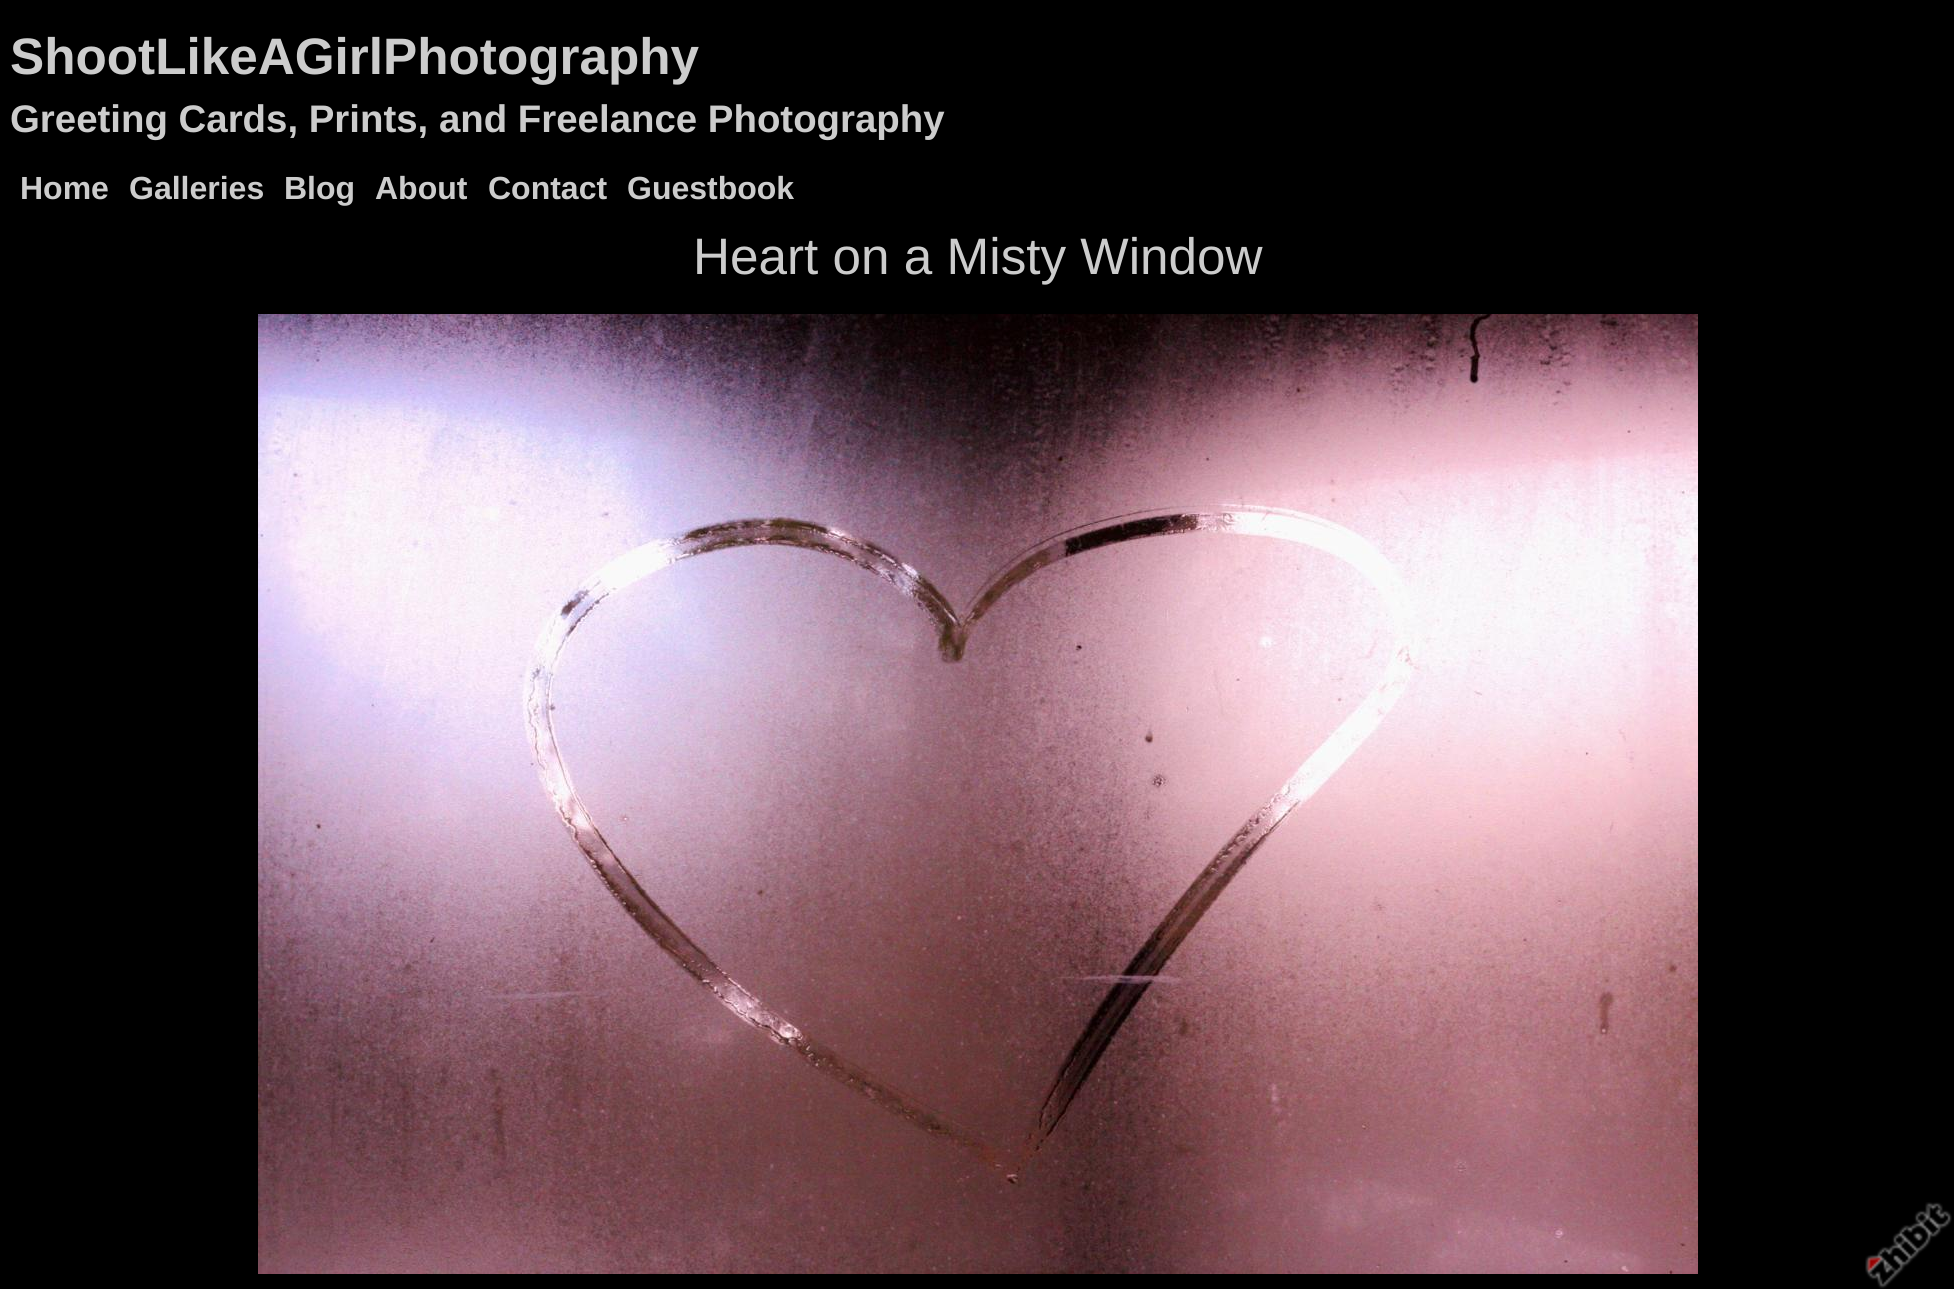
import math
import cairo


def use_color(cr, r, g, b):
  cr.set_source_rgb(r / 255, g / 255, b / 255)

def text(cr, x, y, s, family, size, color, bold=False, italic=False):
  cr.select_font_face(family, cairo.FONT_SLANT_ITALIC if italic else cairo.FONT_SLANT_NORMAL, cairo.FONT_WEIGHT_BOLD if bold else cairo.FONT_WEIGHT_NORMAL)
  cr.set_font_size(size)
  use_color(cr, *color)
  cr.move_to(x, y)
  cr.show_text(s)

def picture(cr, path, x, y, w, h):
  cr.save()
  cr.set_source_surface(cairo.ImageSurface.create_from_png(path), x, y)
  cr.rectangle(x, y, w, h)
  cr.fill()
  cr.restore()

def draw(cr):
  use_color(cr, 0, 0, 0)
  cr.paint()
  picture(cr, "img_01.png", 258, 314, 1440, 960)
  picture(cr, "img_02.png", 1865, 1202, 87, 87)
  text(cr, 10, 74, "ShootLikeAGirlPhotography", "Liberation Sans", 51.25, (204, 204, 204), bold=True)
  text(cr, 10, 132, "Greeting Cards, Prints, and Freelance Photography", "Liberation Sans", 38.4, (204, 204, 204), bold=True)
  text(cr, 20, 199, "Home", "Liberation Sans", 32, (204, 204, 204), bold=True)
  text(cr, 129, 199, "Galleries", "Liberation Sans", 32, (204, 204, 204), bold=True)
  text(cr, 284, 199, "Blog", "Liberation Sans", 32, (204, 204, 204), bold=True)
  text(cr, 375, 199, "About", "Liberation Sans", 32, (204, 204, 204), bold=True)
  text(cr, 488, 199, "Contact", "Liberation Sans", 32, (204, 204, 204), bold=True)
  text(cr, 627, 199, "Guestbook", "Liberation Sans", 32, (204, 204, 204), bold=True)
  text(cr, 693, 274, "Heart on a Misty Window", "Liberation Sans", 51.25, (204, 204, 204))


surface = cairo.ImageSurface(cairo.FORMAT_RGB24, 1954, 1289)
cr = cairo.Context(surface)
options = cairo.FontOptions()
options.set_hint_metrics(cairo.HINT_METRICS_OFF)
options.set_hint_style(cairo.HINT_STYLE_NONE)
cr.set_font_options(options)
cr.set_miter_limit(4)
draw(cr)
surface.write_to_png("out.png")
